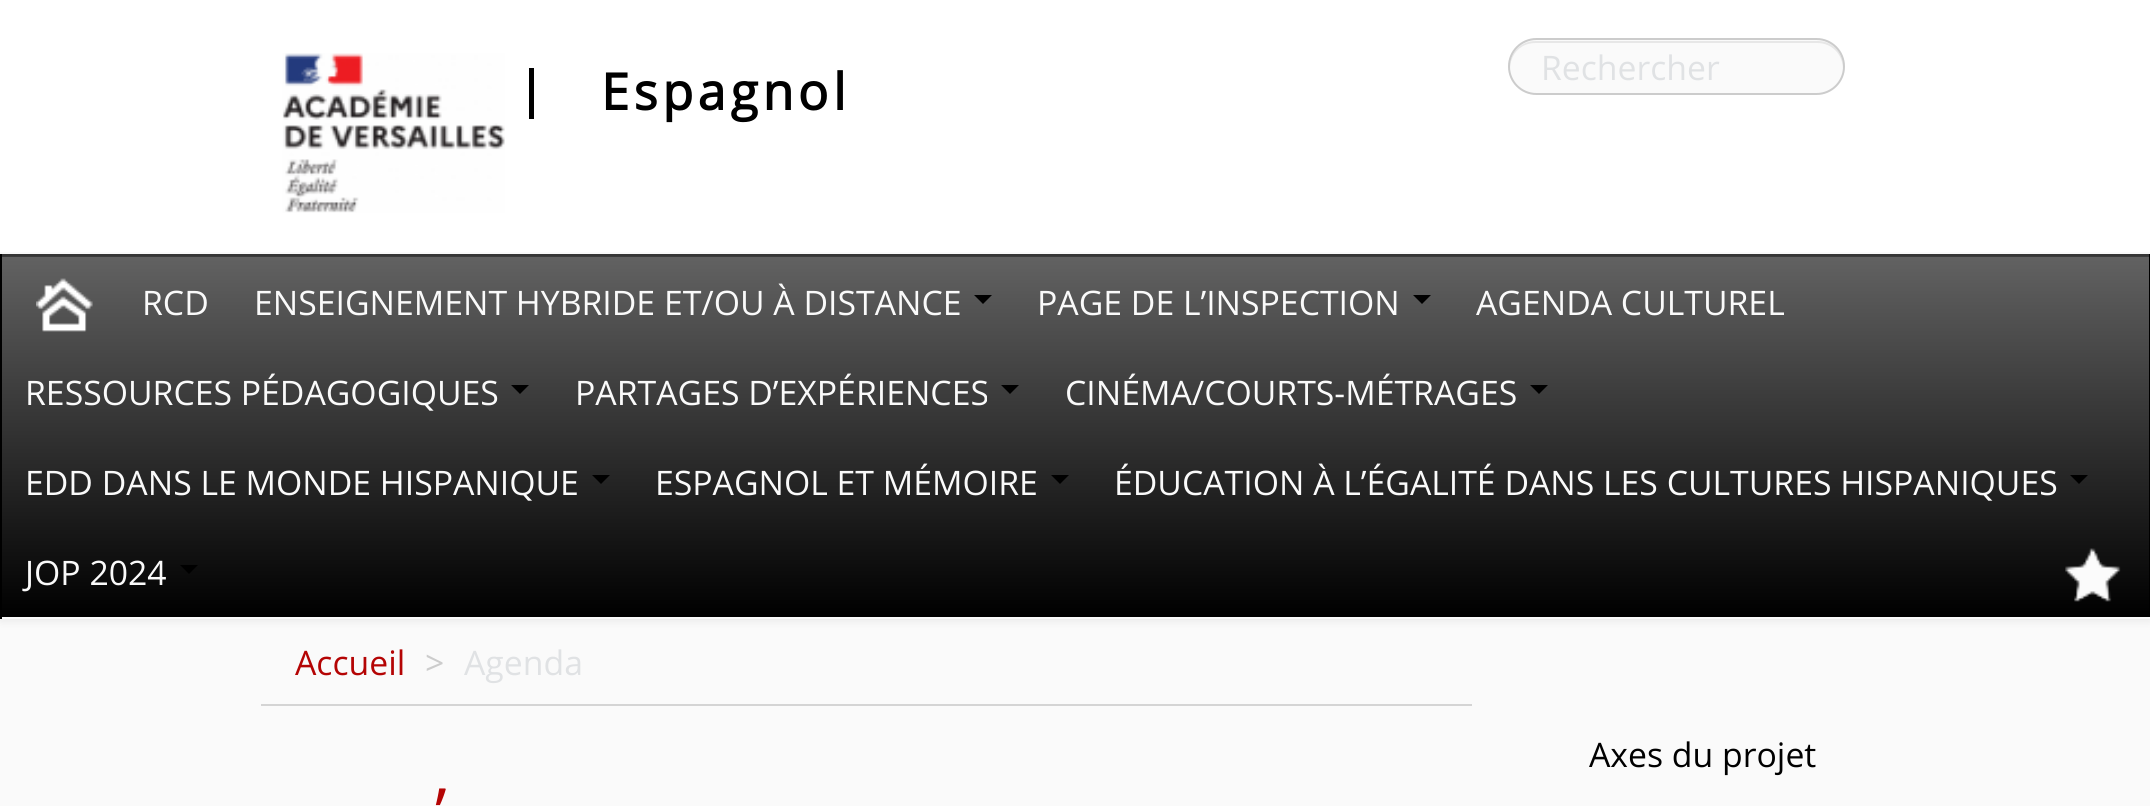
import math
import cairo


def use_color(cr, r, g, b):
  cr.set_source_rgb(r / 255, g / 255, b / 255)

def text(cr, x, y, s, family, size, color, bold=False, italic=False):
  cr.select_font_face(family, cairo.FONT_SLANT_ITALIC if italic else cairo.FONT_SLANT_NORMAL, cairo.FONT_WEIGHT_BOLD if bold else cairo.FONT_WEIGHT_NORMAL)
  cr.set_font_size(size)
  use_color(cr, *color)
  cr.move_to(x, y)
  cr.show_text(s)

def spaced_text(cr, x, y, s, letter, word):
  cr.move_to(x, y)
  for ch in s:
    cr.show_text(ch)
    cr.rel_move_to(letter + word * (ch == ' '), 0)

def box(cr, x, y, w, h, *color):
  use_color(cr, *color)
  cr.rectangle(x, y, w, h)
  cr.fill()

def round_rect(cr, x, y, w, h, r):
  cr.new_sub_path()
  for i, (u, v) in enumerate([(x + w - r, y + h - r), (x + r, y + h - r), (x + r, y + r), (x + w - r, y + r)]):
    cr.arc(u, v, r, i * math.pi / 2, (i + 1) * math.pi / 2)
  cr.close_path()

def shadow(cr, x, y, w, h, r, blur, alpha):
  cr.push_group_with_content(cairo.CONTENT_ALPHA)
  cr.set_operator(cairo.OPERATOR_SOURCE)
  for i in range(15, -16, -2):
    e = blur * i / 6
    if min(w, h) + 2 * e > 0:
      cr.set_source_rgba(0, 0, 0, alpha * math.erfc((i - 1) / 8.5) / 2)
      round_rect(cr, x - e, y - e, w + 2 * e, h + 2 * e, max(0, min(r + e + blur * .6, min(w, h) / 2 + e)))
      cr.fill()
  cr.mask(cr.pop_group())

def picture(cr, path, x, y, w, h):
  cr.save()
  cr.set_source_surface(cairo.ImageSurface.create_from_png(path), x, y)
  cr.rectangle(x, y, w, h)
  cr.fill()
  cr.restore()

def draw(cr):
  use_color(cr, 250, 250, 250)
  cr.paint()
  use_color(cr, 0, 0, 0)
  shadow(cr, 0, 257, 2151, 364, 0, 4.5, 0.07)
  box(cr, 0, 0, 2150, 252, 255, 255, 255)
  box(cr, 0, 252, 2150, 2, 250, 250, 250)
  round_rect(cr, 1508, 38, 337, 57, 28.5)
  cr.fill()
  use_color(cr, 231, 231, 231)
  cr.new_path()
  cr.move_to(1536, 43)
  cr.line_to(1817, 43)
  cr.curve_to(1831, 43, 1842, 53, 1843, 68)
  cr.line_to(1843, 66)
  cr.curve_to(1843, 52, 1832, 41, 1818, 41)
  cr.line_to(1536, 41)
  cr.curve_to(1521, 41, 1510, 52, 1510, 66)
  cr.line_to(1510, 68)
  cr.curve_to(1511, 53, 1521, 43, 1536, 43)
  cr.close_path()
  cr.fill()
  round_rect(cr, 1509, 39, 335, 55, 27.5)
  use_color(cr, 204, 204, 204)
  cr.stroke()
  picture(cr, "img_01.png", 282, 53, 223, 160)
  box(cr, 529, 68, 5, 51, 0, 0, 0)
  box(cr, 2, 256, 2147, 1, 59, 59, 59)
  gradient = cairo.LinearGradient(1076, 256, 1076, 617)
  gradient.add_color_stop_rgba(0, 0.384, 0.384, 0.384, 1)
  gradient.add_color_stop_rgba(1, 0, 0, 0, 1)
  cr.set_source(gradient)
  cr.rectangle(2, 257, 2147, 360)
  cr.fill()
  box(cr, 0, 254, 2150, 2, 54, 54, 54)
  box(cr, 2149, 254, 1, 365, 0, 0, 0)
  box(cr, 0, 617, 2150, 2, 250, 250, 250)
  box(cr, 0, 254, 2, 365, 0, 0, 0)
  picture(cr, "img_02.png", 36, 278, 57, 54)
  cr.new_path()
  cr.move_to(974, 295)
  cr.line_to(992, 295)
  cr.line_to(983, 304)
  cr.close_path()
  cr.fill()
  cr.new_path()
  cr.move_to(1413, 295)
  cr.line_to(1431, 295)
  cr.line_to(1422, 304)
  cr.close_path()
  cr.fill()
  cr.new_path()
  cr.move_to(511, 385)
  cr.line_to(529, 385)
  cr.line_to(520, 394)
  cr.close_path()
  cr.fill()
  cr.new_path()
  cr.move_to(1001, 385)
  cr.line_to(1019, 385)
  cr.line_to(1010, 394)
  cr.close_path()
  cr.fill()
  cr.new_path()
  cr.move_to(1530, 385)
  cr.line_to(1548, 385)
  cr.line_to(1539, 394)
  cr.close_path()
  cr.fill()
  cr.new_path()
  cr.move_to(592, 475)
  cr.line_to(610, 475)
  cr.line_to(601, 484)
  cr.close_path()
  cr.fill()
  cr.new_path()
  cr.move_to(1051, 475)
  cr.line_to(1069, 475)
  cr.line_to(1060, 484)
  cr.close_path()
  cr.fill()
  cr.new_path()
  cr.move_to(2070, 475)
  cr.line_to(2088, 475)
  cr.line_to(2079, 484)
  cr.close_path()
  cr.fill()
  cr.new_path()
  cr.move_to(180, 565)
  cr.line_to(198, 565)
  cr.line_to(189, 574)
  cr.close_path()
  cr.fill()
  picture(cr, "img_03.png", 2065, 548, 56, 54)
  box(cr, 261, 704, 1211, 2, 212, 212, 212)
  text(cr, 1541, 80, "Rechercher", "Open Sans", 33.75, (224, 226, 228))
  cr.select_font_face("Open Sans", cairo.FONT_SLANT_NORMAL, cairo.FONT_WEIGHT_BOLD)
  cr.set_font_size(50.5)
  use_color(cr, 0, 0, 0)
  spaced_text(cr, 601, 110, "Espagnol", 4.5, 0)
  text(cr, 142, 315, "RCD", "Open Sans", 33.75, (250, 250, 250))
  text(cr, 254, 315, "ENSEIGNEMENT HYBRIDE ET/OU À DISTANCE", "Open Sans", 33.75, (250, 250, 250))
  text(cr, 1037, 315, "PAGE DE L’INSPECTION", "Open Sans", 33.75, (250, 250, 250))
  text(cr, 1476, 315, "AGENDA CULTUREL", "Open Sans", 33.75, (250, 250, 250))
  text(cr, 25, 405, "RESSOURCES PÉDAGOGIQUES", "Open Sans", 33.75, (250, 250, 250))
  text(cr, 575, 405, "PARTAGES D’EXPÉRIENCES", "Open Sans", 33.75, (250, 250, 250))
  text(cr, 1065, 405, "CINÉMA/COURTS-MÉTRAGES", "Open Sans", 33.75, (250, 250, 250))
  text(cr, 25, 495, "EDD DANS LE MONDE HISPANIQUE", "Open Sans", 33.75, (250, 250, 250))
  text(cr, 655, 495, "ESPAGNOL ET MÉMOIRE", "Open Sans", 33.75, (250, 250, 250))
  text(cr, 1114, 495, "ÉDUCATION À L’ÉGALITÉ DANS LES CULTURES HISPANIQUES", "Open Sans", 33.75, (250, 250, 250))
  text(cr, 25, 585, "JOP 2024", "Open Sans", 33.75, (250, 250, 250))
  text(cr, 295, 675, "Accueil", "Open Sans", 33.75, (180, 4, 4))
  text(cr, 425, 675, ">", "Open Sans", 33.75, (204, 204, 204))
  text(cr, 464, 675, "Agenda", "Open Sans", 33.75, (224, 226, 228))
  cr.set_font_size(68)
  use_color(cr, 180, 4, 4)
  spaced_text(cr, 435, 837, "’", 7, 0)
  text(cr, 1589, 767, "Axes du projet", "Open Sans", 33.75, (0, 0, 0))


surface = cairo.ImageSurface(cairo.FORMAT_RGB24, 2150, 806)
cr = cairo.Context(surface)
options = cairo.FontOptions()
options.set_hint_metrics(cairo.HINT_METRICS_OFF)
options.set_hint_style(cairo.HINT_STYLE_NONE)
cr.set_font_options(options)
cr.set_miter_limit(4)
draw(cr)
surface.write_to_png("out.png")
